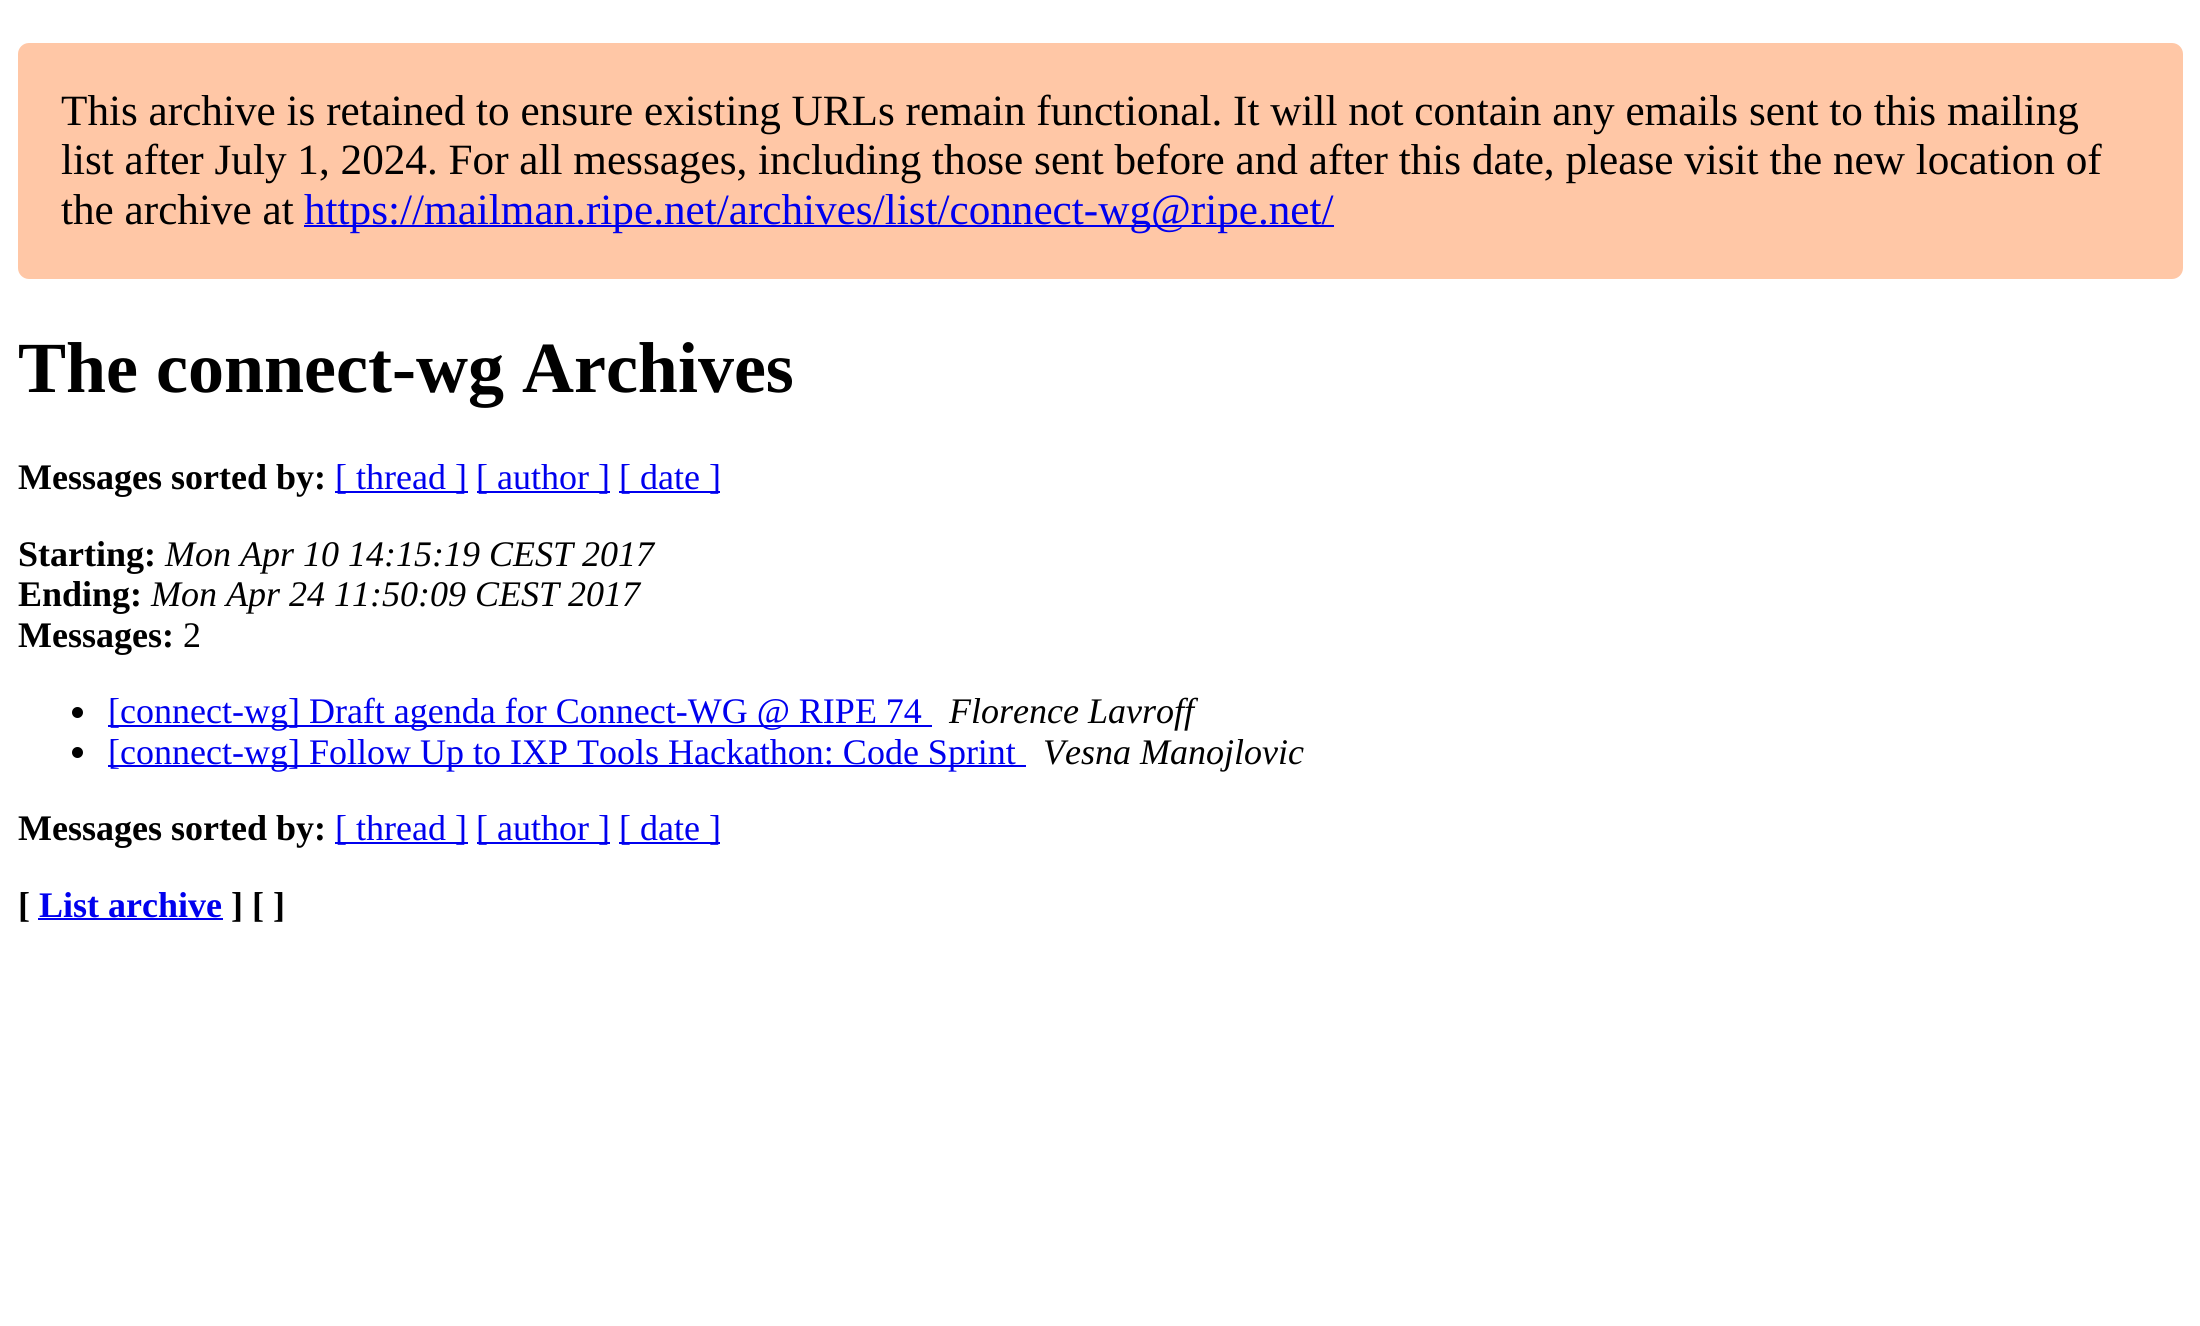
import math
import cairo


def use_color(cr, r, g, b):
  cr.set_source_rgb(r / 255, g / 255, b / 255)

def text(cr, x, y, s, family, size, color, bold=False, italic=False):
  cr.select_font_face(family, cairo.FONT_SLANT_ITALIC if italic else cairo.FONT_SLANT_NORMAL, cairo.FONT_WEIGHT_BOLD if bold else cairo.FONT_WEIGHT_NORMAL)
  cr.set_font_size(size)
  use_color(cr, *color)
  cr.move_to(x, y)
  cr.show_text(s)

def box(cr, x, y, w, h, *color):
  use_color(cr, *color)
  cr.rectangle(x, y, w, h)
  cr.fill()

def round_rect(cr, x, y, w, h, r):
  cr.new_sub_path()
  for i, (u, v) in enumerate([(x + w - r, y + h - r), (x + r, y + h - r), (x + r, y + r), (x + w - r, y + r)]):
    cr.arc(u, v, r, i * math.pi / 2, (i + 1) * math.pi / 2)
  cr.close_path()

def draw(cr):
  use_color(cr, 255, 255, 255)
  cr.paint()
  use_color(cr, 255, 199, 166)
  round_rect(cr, 18, 43, 2165, 236, 11)
  cr.fill()
  box(cr, 304, 225, 1030, 2, 0, 0, 238)
  box(cr, 335, 491, 133, 2, 0, 0, 238)
  box(cr, 477, 491, 133, 2, 0, 0, 238)
  box(cr, 619, 491, 101, 2, 0, 0, 238)
  use_color(cr, 0, 0, 0)
  cr.arc(77.5, 712.5, 5.5, 0, 2 * math.pi)
  cr.fill()
  box(cr, 108, 725, 824, 2, 0, 0, 238)
  use_color(cr, 0, 0, 0)
  cr.arc(77.5, 752.5, 5.5, 0, 2 * math.pi)
  cr.fill()
  box(cr, 108, 765, 918, 2, 0, 0, 238)
  box(cr, 335, 842, 133, 2, 0, 0, 238)
  box(cr, 477, 842, 133, 2, 0, 0, 238)
  box(cr, 619, 842, 101, 2, 0, 0, 238)
  box(cr, 38, 918, 185, 2, 0, 0, 238)
  text(cr, 61, 125, "This archive is retained to ensure existing URLs remain functional. It will not contain any emails sent to this mailing", "Liberation Serif", 43.2, (0, 0, 0))
  text(cr, 61, 174, "list after July 1, 2024. For all messages, including those sent before and after this date, please visit the new location of", "Liberation Serif", 43.2, (0, 0, 0))
  text(cr, 61, 224, "the archive at", "Liberation Serif", 43.2, (0, 0, 0))
  text(cr, 304, 224, "https://mailman.ripe.net/archives/list/connect-wg@ripe.net/", "Liberation Serif", 43.2, (0, 0, 238))
  text(cr, 18, 392, "The connect-wg Archives", "Liberation Serif", 72, (0, 0, 0), bold=True)
  text(cr, 18, 489, "Messages sorted by:", "Liberation Serif", 36, (0, 0, 0), bold=True)
  text(cr, 335, 489, "[ thread ]", "Liberation Serif", 36, (0, 0, 238))
  text(cr, 476, 489, "[ author ]", "Liberation Serif", 36, (0, 0, 238))
  text(cr, 619, 489, "[ date ]", "Liberation Serif", 36, (0, 0, 238))
  text(cr, 18, 566, "Starting:", "Liberation Serif", 36, (0, 0, 0), bold=True)
  text(cr, 165, 566, "Mon Apr 10 14:15:19 CEST 2017", "Liberation Serif", 36, (0, 0, 0), italic=True)
  text(cr, 18, 606, "Ending:", "Liberation Serif", 36, (0, 0, 0), bold=True)
  text(cr, 151, 606, "Mon Apr 24 11:50:09 CEST 2017", "Liberation Serif", 36, (0, 0, 0), italic=True)
  text(cr, 18, 647, "Messages:", "Liberation Serif", 36, (0, 0, 0), bold=True)
  text(cr, 183, 647, "2", "Liberation Serif", 36, (0, 0, 0))
  text(cr, 108, 723, "[connect-wg] Draft agenda for Connect-WG @ RIPE 74", "Liberation Serif", 36, (0, 0, 238))
  text(cr, 949, 723, "Florence Lavroff", "Liberation Serif", 36, (0, 0, 0), italic=True)
  text(cr, 108, 764, "[connect-wg] Follow Up to IXP Tools Hackathon: Code Sprint", "Liberation Serif", 36, (0, 0, 238))
  text(cr, 1043, 764, "Vesna Manojlovic", "Liberation Serif", 36, (0, 0, 0), italic=True)
  text(cr, 18, 840, "Messages sorted by:", "Liberation Serif", 36, (0, 0, 0), bold=True)
  text(cr, 335, 840, "[ thread ]", "Liberation Serif", 36, (0, 0, 238))
  text(cr, 476, 840, "[ author ]", "Liberation Serif", 36, (0, 0, 238))
  text(cr, 619, 840, "[ date ]", "Liberation Serif", 36, (0, 0, 238))
  text(cr, 18, 917, "[", "Liberation Serif", 36, (0, 0, 0), bold=True)
  text(cr, 39, 917, "List archive", "Liberation Serif", 36, (0, 0, 238), bold=True)
  text(cr, 231, 917, "] [ ]", "Liberation Serif", 36, (0, 0, 0), bold=True)


surface = cairo.ImageSurface(cairo.FORMAT_RGB24, 2200, 1326)
cr = cairo.Context(surface)
options = cairo.FontOptions()
options.set_hint_metrics(cairo.HINT_METRICS_OFF)
options.set_hint_style(cairo.HINT_STYLE_NONE)
cr.set_font_options(options)
cr.set_miter_limit(4)
draw(cr)
surface.write_to_png("out.png")
